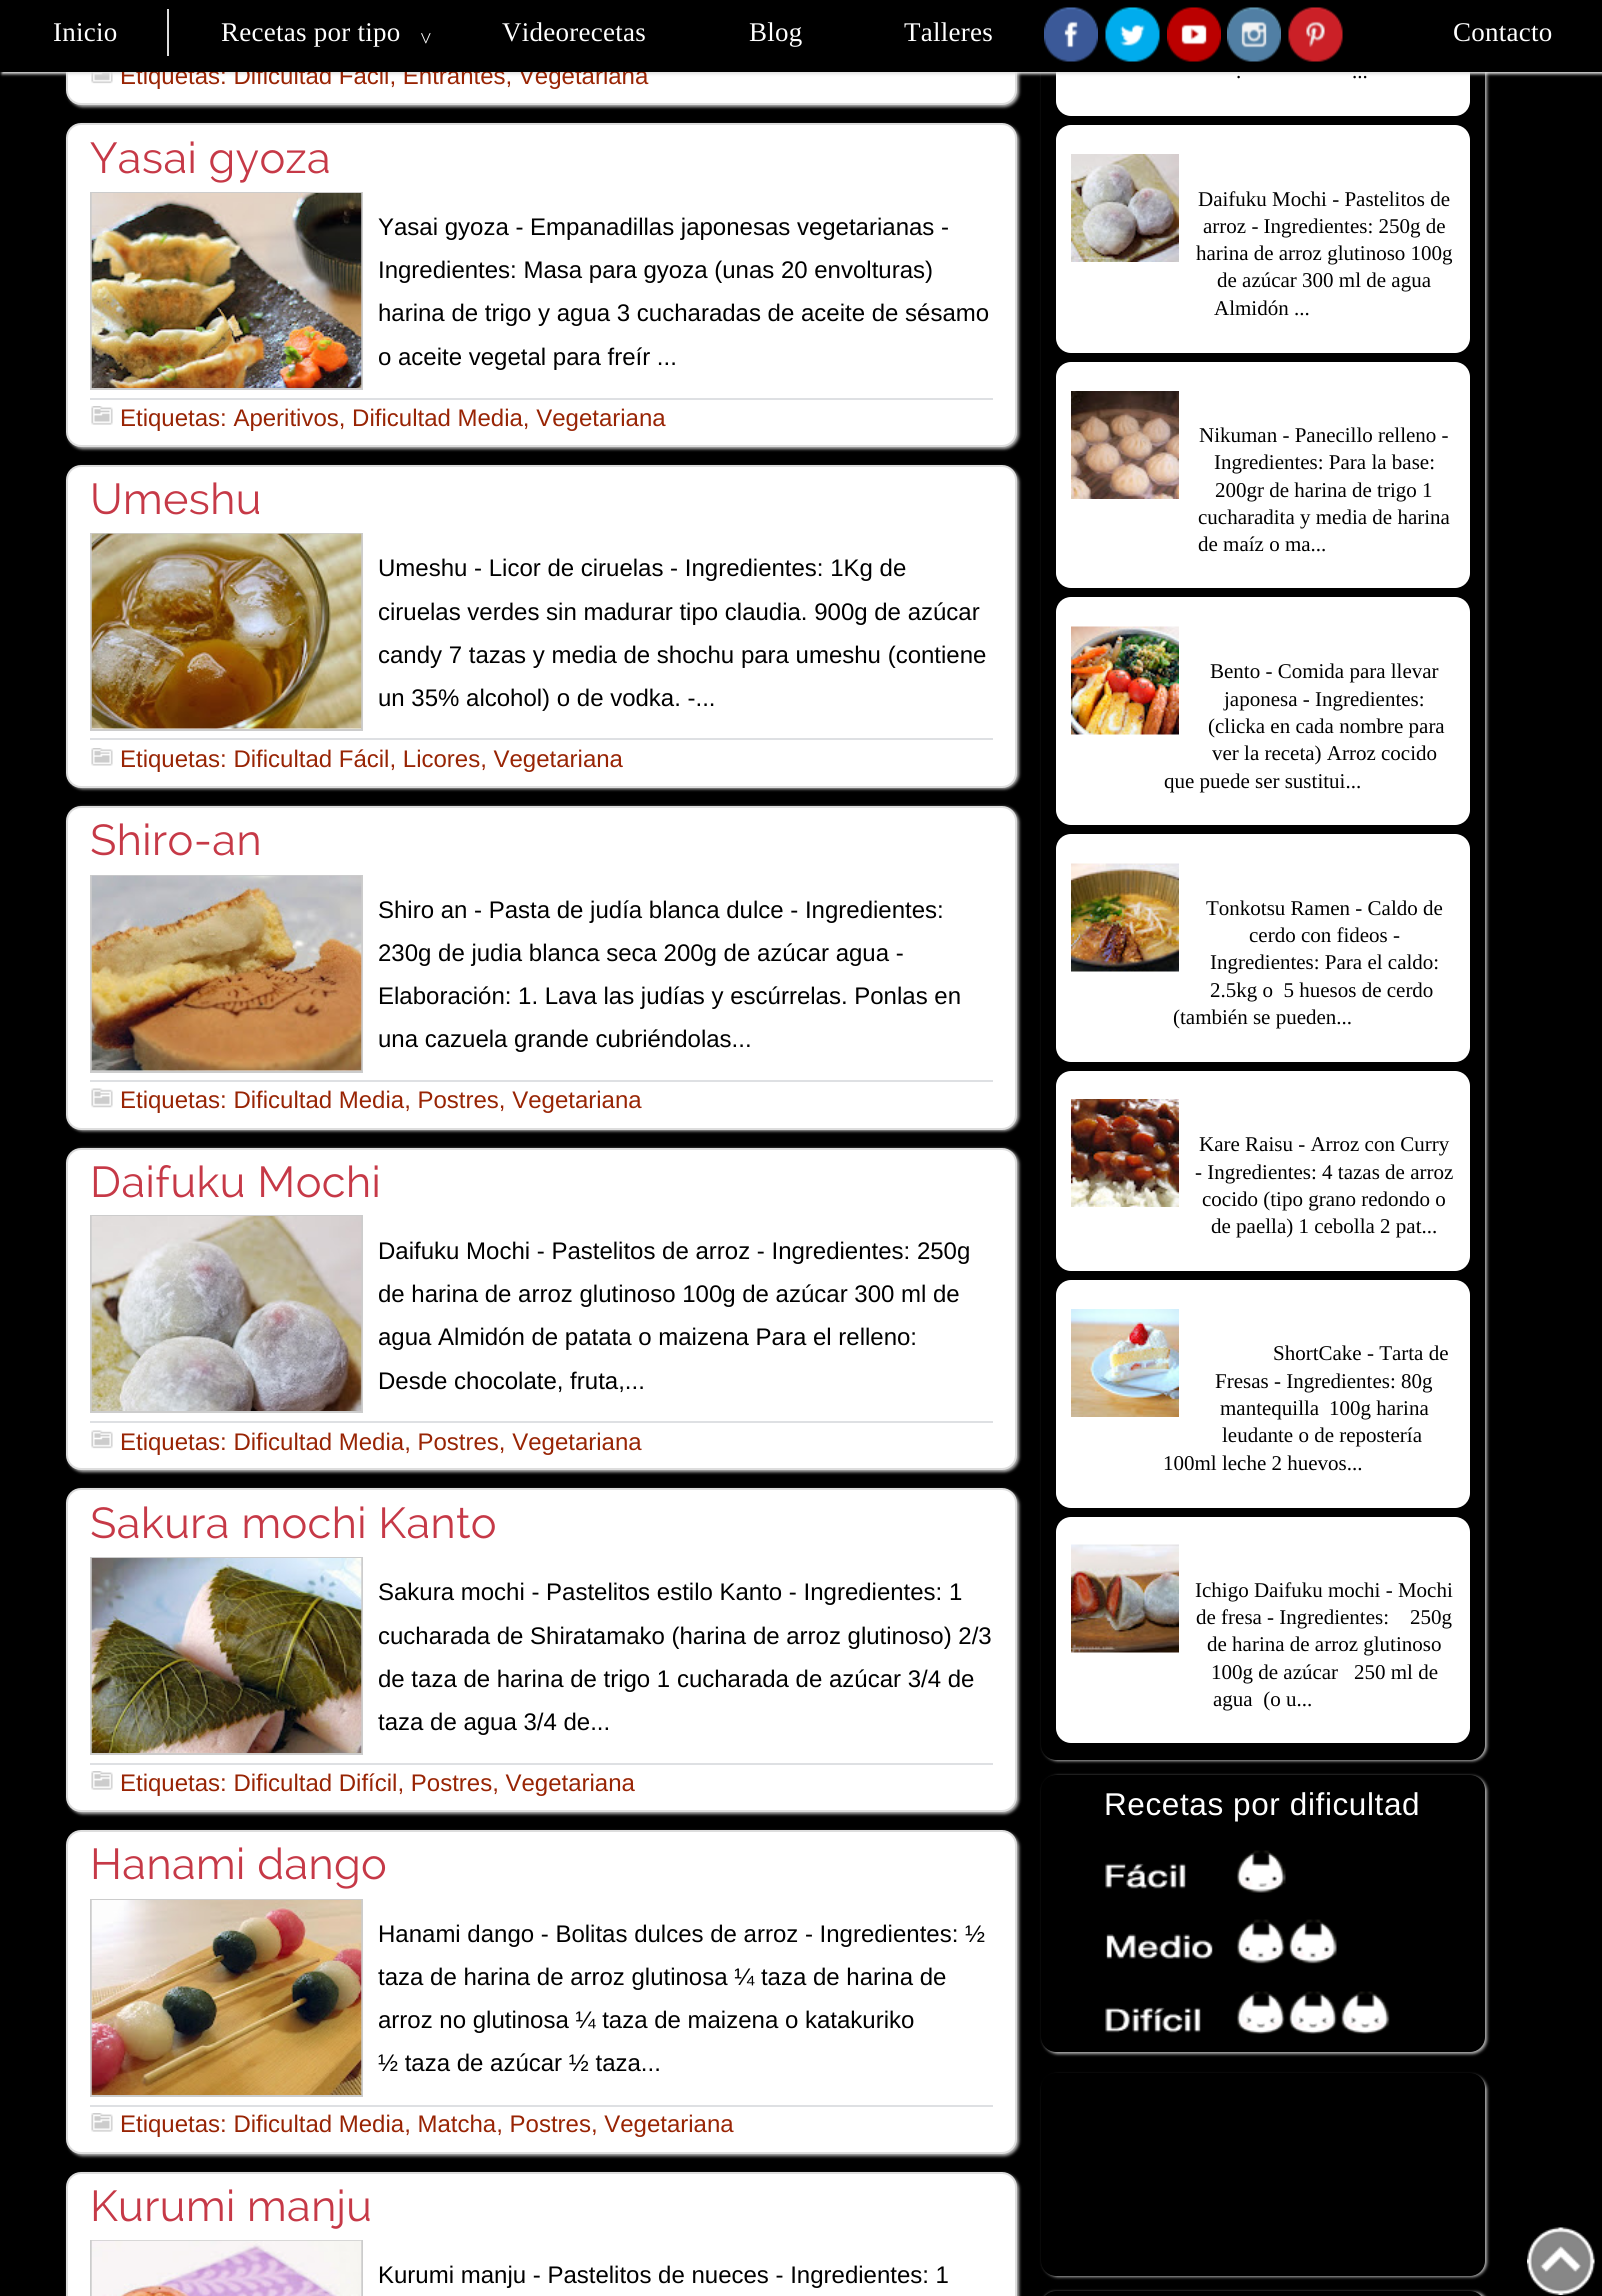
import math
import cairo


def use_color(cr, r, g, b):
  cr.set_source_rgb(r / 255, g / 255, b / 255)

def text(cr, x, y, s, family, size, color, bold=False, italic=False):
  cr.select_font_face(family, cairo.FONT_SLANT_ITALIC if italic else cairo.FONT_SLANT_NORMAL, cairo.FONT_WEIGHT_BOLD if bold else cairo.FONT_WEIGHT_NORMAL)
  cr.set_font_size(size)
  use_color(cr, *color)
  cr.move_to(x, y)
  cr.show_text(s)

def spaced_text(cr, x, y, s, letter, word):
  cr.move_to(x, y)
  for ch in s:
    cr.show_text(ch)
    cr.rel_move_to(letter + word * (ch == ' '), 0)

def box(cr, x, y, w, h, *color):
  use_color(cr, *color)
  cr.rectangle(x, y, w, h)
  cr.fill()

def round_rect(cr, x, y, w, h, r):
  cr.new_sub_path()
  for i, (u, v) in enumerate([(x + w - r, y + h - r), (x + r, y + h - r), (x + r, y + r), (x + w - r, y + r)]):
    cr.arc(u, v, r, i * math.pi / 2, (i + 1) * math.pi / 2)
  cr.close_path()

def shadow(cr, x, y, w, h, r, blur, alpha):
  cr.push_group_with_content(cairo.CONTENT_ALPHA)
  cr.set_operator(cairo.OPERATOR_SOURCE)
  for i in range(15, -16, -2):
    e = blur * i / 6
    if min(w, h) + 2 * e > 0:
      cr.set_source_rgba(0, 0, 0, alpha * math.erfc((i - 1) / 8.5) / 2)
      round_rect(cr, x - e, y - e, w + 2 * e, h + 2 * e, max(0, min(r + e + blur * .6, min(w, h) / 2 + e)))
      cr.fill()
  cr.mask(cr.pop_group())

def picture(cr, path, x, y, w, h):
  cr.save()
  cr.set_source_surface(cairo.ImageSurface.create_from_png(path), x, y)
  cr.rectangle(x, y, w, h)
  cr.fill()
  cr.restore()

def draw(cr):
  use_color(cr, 0, 0, 0)
  cr.paint()
  use_color(cr, 177, 177, 177)
  shadow(cr, 68, -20, 951, 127, 15, 1.5, 1)
  use_color(cr, 255, 255, 255)
  round_rect(cr, 67, -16, 949, 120, 14)
  cr.fill_preserve()
  use_color(cr, 221, 221, 221)
  cr.stroke()
  picture(cr, "img_06.png", 91, 72, 22, 12)
  use_color(cr, 177, 177, 177)
  shadow(cr, 1043, -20, 444, 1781, 15, 1.5, 1)
  use_color(cr, 0, 0, 0)
  round_rect(cr, 1041, -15, 444, 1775, 15)
  cr.fill()
  use_color(cr, 255, 255, 255)
  round_rect(cr, 1056, -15, 414, 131, 15)
  cr.fill()
  use_color(cr, 225, 225, 225)
  shadow(cr, 2, 2, 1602, 72, 0, 1.5, 1)
  use_color(cr, 177, 177, 177)
  shadow(cr, 68, 125, 951, 324, 15, 1.5, 1)
  use_color(cr, 255, 255, 255)
  round_rect(cr, 67, 124, 949, 322, 14)
  cr.fill_preserve()
  use_color(cr, 221, 221, 221)
  cr.stroke()
  cr.rectangle(91, 193, 271, 196)
  use_color(cr, 204, 204, 204)
  cr.stroke()
  picture(cr, "img_07.png", 91, 193, 271, 195)
  box(cr, 90, 398, 903, 2, 222, 224, 227)
  picture(cr, "img_08.png", 91, 406, 22, 19)
  use_color(cr, 177, 177, 177)
  shadow(cr, 68, 467, 951, 322, 15, 1.5, 1)
  use_color(cr, 255, 255, 255)
  round_rect(cr, 67, 466, 949, 321, 14)
  cr.fill_preserve()
  use_color(cr, 221, 221, 221)
  cr.stroke()
  cr.rectangle(91, 534, 271, 196)
  use_color(cr, 204, 204, 204)
  cr.stroke()
  picture(cr, "img_09.png", 91, 533, 271, 196)
  box(cr, 90, 738, 903, 2, 222, 224, 227)
  picture(cr, "img_10.png", 91, 748, 22, 18)
  use_color(cr, 177, 177, 177)
  shadow(cr, 68, 807, 951, 324, 15, 1.5, 1)
  use_color(cr, 255, 255, 255)
  round_rect(cr, 67, 807, 949, 322, 14)
  cr.fill_preserve()
  use_color(cr, 221, 221, 221)
  cr.stroke()
  cr.rectangle(91, 876, 271, 196)
  use_color(cr, 204, 204, 204)
  cr.stroke()
  picture(cr, "img_11.png", 91, 875, 271, 196)
  box(cr, 90, 1080, 903, 2, 222, 224, 227)
  picture(cr, "img_12.png", 91, 1088, 22, 20)
  use_color(cr, 177, 177, 177)
  shadow(cr, 68, 1149, 951, 323, 15, 1.5, 1)
  use_color(cr, 255, 255, 255)
  round_rect(cr, 67, 1149, 949, 320, 14)
  cr.fill_preserve()
  use_color(cr, 221, 221, 221)
  cr.stroke()
  cr.rectangle(91, 1216, 271, 196)
  use_color(cr, 204, 204, 204)
  cr.stroke()
  picture(cr, "img_13.png", 91, 1216, 271, 195)
  box(cr, 90, 1421, 903, 2, 222, 224, 227)
  picture(cr, "img_14.png", 91, 1430, 22, 19)
  use_color(cr, 177, 177, 177)
  shadow(cr, 68, 1490, 951, 324, 15, 1.5, 1)
  use_color(cr, 255, 255, 255)
  round_rect(cr, 67, 1489, 949, 322, 14)
  cr.fill_preserve()
  use_color(cr, 221, 221, 221)
  cr.stroke()
  cr.rectangle(91, 1558, 271, 196)
  use_color(cr, 204, 204, 204)
  cr.stroke()
  picture(cr, "img_15.png", 91, 1558, 271, 195)
  box(cr, 90, 1763, 903, 2, 222, 224, 227)
  picture(cr, "img_08.png", 91, 1771, 22, 19)
  use_color(cr, 177, 177, 177)
  shadow(cr, 68, 1832, 951, 324, 15, 1.5, 1)
  use_color(cr, 255, 255, 255)
  round_rect(cr, 67, 1831, 949, 322, 14)
  cr.fill_preserve()
  use_color(cr, 221, 221, 221)
  cr.stroke()
  cr.rectangle(91, 1900, 271, 196)
  use_color(cr, 204, 204, 204)
  cr.stroke()
  picture(cr, "img_16.png", 91, 1900, 271, 195)
  box(cr, 90, 2105, 903, 2, 222, 224, 227)
  picture(cr, "img_08.png", 91, 2113, 22, 19)
  use_color(cr, 177, 177, 177)
  shadow(cr, 68, 2174, 951, 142, 15, 1.5, 1)
  use_color(cr, 255, 255, 255)
  round_rect(cr, 67, 2173, 949, 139, 14)
  cr.fill_preserve()
  use_color(cr, 221, 221, 221)
  cr.stroke()
  cr.rectangle(91, 2241, 271, 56)
  use_color(cr, 204, 204, 204)
  cr.stroke()
  picture(cr, "img_17.png", 91, 2240, 271, 56)
  use_color(cr, 255, 255, 255)
  round_rect(cr, 1056, 125, 414, 228, 15)
  cr.fill()
  picture(cr, "img_18.png", 1071, 154, 108, 108)
  round_rect(cr, 1056, 362, 414, 226, 15)
  cr.fill()
  picture(cr, "img_19.png", 1071, 391, 108, 108)
  round_rect(cr, 1056, 597, 414, 228, 15)
  cr.fill()
  picture(cr, "img_20.png", 1071, 626, 108, 109)
  round_rect(cr, 1056, 834, 414, 228, 15)
  cr.fill()
  picture(cr, "img_21.png", 1071, 863, 108, 109)
  round_rect(cr, 1056, 1071, 414, 200, 15)
  cr.fill()
  picture(cr, "img_22.png", 1071, 1099, 108, 108)
  round_rect(cr, 1056, 1280, 414, 228, 15)
  cr.fill()
  picture(cr, "img_23.png", 1071, 1309, 108, 108)
  round_rect(cr, 1056, 1517, 414, 226, 15)
  cr.fill()
  picture(cr, "img_24.png", 1071, 1544, 108, 109)
  use_color(cr, 177, 177, 177)
  shadow(cr, 1043, 1776, 444, 278, 15, 1.5, 1)
  use_color(cr, 0, 0, 0)
  round_rect(cr, 1041, 1775, 444, 277, 15)
  cr.fill()
  picture(cr, "img_25.png", 1105, 1850, 181, 43)
  picture(cr, "img_26.png", 1106, 1919, 231, 45)
  picture(cr, "img_27.png", 1105, 1991, 285, 43)
  use_color(cr, 177, 177, 177)
  shadow(cr, 1043, 2075, 444, 202, 15, 1.5, 1)
  use_color(cr, 0, 0, 0)
  round_rect(cr, 1041, 2073, 444, 203, 15)
  cr.fill()
  use_color(cr, 177, 177, 177)
  shadow(cr, 1043, 2292, 444, 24, 15, 1.5, 1)
  use_color(cr, 0, 0, 0)
  round_rect(cr, 1041, 2291, 444, 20, 15)
  cr.fill()
  picture(cr, "img_28.png", 1527, 2227, 68, 68)
  text(cr, 120, 84, "Etiquetas: Dificultad Fácil, Entrantes, Vegetariana", "Liberation Sans", 24, (152, 36, 4))
  box(cr, 0, 0, 1602, 72, 0, 0, 0)
  cr.select_font_face("Liberation Serif")
  cr.set_font_size(27)
  use_color(cr, 255, 255, 255)
  spaced_text(cr, 1453, 41, "Contacto", 0.25, 0)
  spaced_text(cr, 904, 41, "Talleres", 0.25, 0)
  spaced_text(cr, 749, 41, "Blog", 0.25, 0)
  spaced_text(cr, 502, 41, "Videorecetas", 0.25, 0)
  cr.set_font_size(22)
  cr.save()
  cr.translate(431, 29)
  cr.rotate(180 * math.pi / 180)
  spaced_text(cr, 0, 0, "^", 0.25, 0)
  cr.restore()
  cr.set_font_size(27)
  spaced_text(cr, 221, 41, "Recetas por tipo", 0.25, 0)
  spaced_text(cr, 53, 41, "Inicio", 0.25, 0)
  box(cr, 167, 9, 2, 47, 221, 221, 221)
  picture(cr, "img_05.png", 1288, 7, 55, 55)
  picture(cr, "img_04.png", 1227, 7, 54, 55)
  picture(cr, "img_03.png", 1167, 7, 54, 55)
  picture(cr, "img_02.png", 1105, 7, 55, 55)
  picture(cr, "img_01.png", 1044, 7, 54, 55)
  cr.select_font_face("Raleway")
  cr.set_font_size(43.25)
  use_color(cr, 198, 57, 71)
  spaced_text(cr, 90, 173, "Yasai gyoza", 0.4, 0)
  text(cr, 378, 235, "Yasai gyoza - Empanadillas japonesas vegetarianas -", "Liberation Sans", 24, (0, 0, 0))
  text(cr, 378, 278, "Ingredientes: Masa para gyoza (unas 20 envolturas)", "Liberation Sans", 24, (0, 0, 0))
  text(cr, 378, 321, "harina de trigo y agua 3 cucharadas de aceite de sésamo", "Liberation Sans", 24, (0, 0, 0))
  text(cr, 378, 365, "o aceite vegetal para freír ...", "Liberation Sans", 24, (0, 0, 0))
  text(cr, 120, 426, "Etiquetas: Aperitivos, Dificultad Media, Vegetariana", "Liberation Sans", 24, (152, 36, 4))
  cr.select_font_face("Raleway")
  cr.set_font_size(43.25)
  use_color(cr, 198, 57, 71)
  spaced_text(cr, 90, 514, "Umeshu", 0.4, 0)
  text(cr, 378, 576, "Umeshu - Licor de ciruelas - Ingredientes: 1Kg de", "Liberation Sans", 24, (0, 0, 0))
  text(cr, 378, 620, "ciruelas verdes sin madurar tipo claudia. 900g de azúcar", "Liberation Sans", 24, (0, 0, 0))
  text(cr, 378, 663, "candy 7 tazas y media de shochu para umeshu (contiene", "Liberation Sans", 24, (0, 0, 0))
  text(cr, 378, 706, "un 35% alcohol) o de vodka. -...", "Liberation Sans", 24, (0, 0, 0))
  text(cr, 120, 767, "Etiquetas: Dificultad Fácil, Licores, Vegetariana", "Liberation Sans", 24, (152, 36, 4))
  cr.select_font_face("Raleway")
  cr.set_font_size(43.25)
  use_color(cr, 198, 57, 71)
  spaced_text(cr, 90, 855, "Shiro-an", 0.4, 0)
  text(cr, 378, 918, "Shiro an - Pasta de judía blanca dulce - Ingredientes:", "Liberation Sans", 24, (0, 0, 0))
  text(cr, 378, 961, "230g de judia blanca seca 200g de azúcar agua -", "Liberation Sans", 24, (0, 0, 0))
  text(cr, 378, 1004, "Elaboración: 1. Lava las judías y escúrrelas. Ponlas en", "Liberation Sans", 24, (0, 0, 0))
  text(cr, 378, 1047, "una cazuela grande cubriéndolas...", "Liberation Sans", 24, (0, 0, 0))
  text(cr, 120, 1108, "Etiquetas: Dificultad Media, Postres, Vegetariana", "Liberation Sans", 24, (152, 36, 4))
  cr.select_font_face("Raleway")
  cr.set_font_size(43.25)
  use_color(cr, 198, 57, 71)
  spaced_text(cr, 90, 1197, "Daifuku Mochi", 0.4, 0)
  text(cr, 378, 1259, "Daifuku Mochi - Pastelitos de arroz - Ingredientes: 250g", "Liberation Sans", 24, (0, 0, 0))
  text(cr, 378, 1302, "de harina de arroz glutinoso 100g de azúcar 300 ml de", "Liberation Sans", 24, (0, 0, 0))
  text(cr, 378, 1345, "agua Almidón de patata o maizena Para el relleno:", "Liberation Sans", 24, (0, 0, 0))
  text(cr, 378, 1389, "Desde chocolate, fruta,...", "Liberation Sans", 24, (0, 0, 0))
  text(cr, 120, 1450, "Etiquetas: Dificultad Media, Postres, Vegetariana", "Liberation Sans", 24, (152, 36, 4))
  cr.select_font_face("Raleway")
  cr.set_font_size(43.25)
  use_color(cr, 198, 57, 71)
  spaced_text(cr, 90, 1538, "Sakura mochi Kanto", 0.4, 0)
  text(cr, 378, 1600, "Sakura mochi - Pastelitos estilo Kanto - Ingredientes: 1", "Liberation Sans", 24, (0, 0, 0))
  text(cr, 378, 1644, "cucharada de Shiratamako (harina de arroz glutinoso) 2/3", "Liberation Sans", 24, (0, 0, 0))
  text(cr, 378, 1687, "de taza de harina de trigo 1 cucharada de azúcar 3/4 de", "Liberation Sans", 24, (0, 0, 0))
  text(cr, 378, 1730, "taza de agua 3/4 de...", "Liberation Sans", 24, (0, 0, 0))
  text(cr, 120, 1791, "Etiquetas: Dificultad Difícil, Postres, Vegetariana", "Liberation Sans", 24, (152, 36, 4))
  cr.select_font_face("Raleway")
  cr.set_font_size(43.25)
  use_color(cr, 198, 57, 71)
  spaced_text(cr, 90, 1879, "Hanami dango", 0.4, 0)
  text(cr, 378, 1942, "Hanami dango - Bolitas dulces de arroz - Ingredientes: ½", "Liberation Sans", 24, (0, 0, 0))
  text(cr, 378, 1985, "taza de harina de arroz glutinosa ¼ taza de harina de", "Liberation Sans", 24, (0, 0, 0))
  text(cr, 378, 2028, "arroz no glutinosa ¼ taza de maizena o katakuriko", "Liberation Sans", 24, (0, 0, 0))
  text(cr, 378, 2071, "½ taza de azúcar ½ taza...", "Liberation Sans", 24, (0, 0, 0))
  text(cr, 120, 2132, "Etiquetas: Dificultad Media, Matcha, Postres, Vegetariana", "Liberation Sans", 24, (152, 36, 4))
  cr.select_font_face("Raleway")
  cr.set_font_size(43.25)
  use_color(cr, 198, 57, 71)
  spaced_text(cr, 90, 2221, "Kurumi manju", 0.4, 0)
  text(cr, 378, 2283, "Kurumi manju - Pastelitos de nueces - Ingredientes: 1", "Liberation Sans", 24, (0, 0, 0))
  text(cr, 1236, 78, ".", "Liberation Serif", 21, (0, 0, 0))
  text(cr, 1352, 78, "...", "Liberation Serif", 21, (0, 0, 0))
  text(cr, 1198, 206, "Daifuku Mochi - Pastelitos de", "Liberation Serif", 21, (0, 0, 0))
  text(cr, 1203, 233, "arroz - Ingredientes: 250g de", "Liberation Serif", 21, (0, 0, 0))
  text(cr, 1196, 260, "harina de arroz glutinoso 100g", "Liberation Serif", 21, (0, 0, 0))
  text(cr, 1217, 287, "de azúcar 300 ml de agua", "Liberation Serif", 21, (0, 0, 0))
  text(cr, 1214, 315, "Almidón ...", "Liberation Serif", 21, (0, 0, 0))
  text(cr, 1199, 442, "Nikuman - Panecillo relleno -", "Liberation Serif", 21, (0, 0, 0))
  text(cr, 1214, 469, "Ingredientes: Para la base:", "Liberation Serif", 21, (0, 0, 0))
  text(cr, 1215, 497, "200gr de harina de trigo 1", "Liberation Serif", 21, (0, 0, 0))
  text(cr, 1198, 524, "cucharadita y media de harina", "Liberation Serif", 21, (0, 0, 0))
  text(cr, 1198, 551, "de maíz o ma...", "Liberation Serif", 21, (0, 0, 0))
  text(cr, 1210, 678, "Bento - Comida para llevar", "Liberation Serif", 21, (0, 0, 0))
  text(cr, 1224, 706, "japonesa - Ingredientes:", "Liberation Serif", 21, (0, 0, 0))
  text(cr, 1208, 733, "(clicka en cada nombre para", "Liberation Serif", 21, (0, 0, 0))
  text(cr, 1212, 760, "ver la receta) Arroz cocido", "Liberation Serif", 21, (0, 0, 0))
  text(cr, 1164, 788, "que puede ser sustitui...", "Liberation Serif", 21, (0, 0, 0))
  text(cr, 1206, 915, "Tonkotsu Ramen - Caldo de", "Liberation Serif", 21, (0, 0, 0))
  text(cr, 1249, 942, "cerdo con fideos -", "Liberation Serif", 21, (0, 0, 0))
  text(cr, 1210, 969, "Ingredientes: Para el caldo:", "Liberation Serif", 21, (0, 0, 0))
  text(cr, 1210, 997, "2.5kg o  5 huesos de cerdo", "Liberation Serif", 21, (0, 0, 0))
  text(cr, 1173, 1024, "(también se pueden...", "Liberation Serif", 21, (0, 0, 0))
  text(cr, 1199, 1151, "Kare Raisu - Arroz con Curry", "Liberation Serif", 21, (0, 0, 0))
  text(cr, 1195, 1179, "- Ingredientes: 4 tazas de arroz", "Liberation Serif", 21, (0, 0, 0))
  text(cr, 1202, 1206, "cocido (tipo grano redondo o", "Liberation Serif", 21, (0, 0, 0))
  text(cr, 1211, 1233, "de paella) 1 cebolla 2 pat...", "Liberation Serif", 21, (0, 0, 0))
  text(cr, 1273, 1360, "ShortCake - Tarta de", "Liberation Serif", 21, (0, 0, 0))
  text(cr, 1215, 1388, "Fresas - Ingredientes: 80g", "Liberation Serif", 21, (0, 0, 0))
  text(cr, 1220, 1415, "mantequilla", "Liberation Serif", 21, (0, 0, 0))
  text(cr, 1329, 1415, "100g harina", "Liberation Serif", 21, (0, 0, 0))
  text(cr, 1222, 1442, "leudante o de repostería", "Liberation Serif", 21, (0, 0, 0))
  text(cr, 1163, 1470, "100ml leche 2 huevos...", "Liberation Serif", 21, (0, 0, 0))
  text(cr, 1195, 1597, "Ichigo Daifuku mochi - Mochi", "Liberation Serif", 21, (0, 0, 0))
  text(cr, 1196, 1624, "de fresa - Ingredientes:", "Liberation Serif", 21, (0, 0, 0))
  text(cr, 1410, 1624, "250g", "Liberation Serif", 21, (0, 0, 0))
  text(cr, 1207, 1651, "de harina de arroz glutinoso", "Liberation Serif", 21, (0, 0, 0))
  text(cr, 1211, 1679, "100g de azúcar", "Liberation Serif", 21, (0, 0, 0))
  text(cr, 1354, 1679, "250 ml de", "Liberation Serif", 21, (0, 0, 0))
  text(cr, 1213, 1706, "agua  (o u...", "Liberation Serif", 21, (0, 0, 0))
  cr.select_font_face("Liberation Sans")
  cr.set_font_size(31.5)
  use_color(cr, 255, 255, 255)
  spaced_text(cr, 1104, 1815, "Recetas por dificultad", 0.6, 0)


surface = cairo.ImageSurface(cairo.FORMAT_RGB24, 1602, 2296)
cr = cairo.Context(surface)
options = cairo.FontOptions()
options.set_hint_metrics(cairo.HINT_METRICS_OFF)
options.set_hint_style(cairo.HINT_STYLE_NONE)
cr.set_font_options(options)
cr.set_miter_limit(4)
draw(cr)
surface.write_to_png("out.png")
